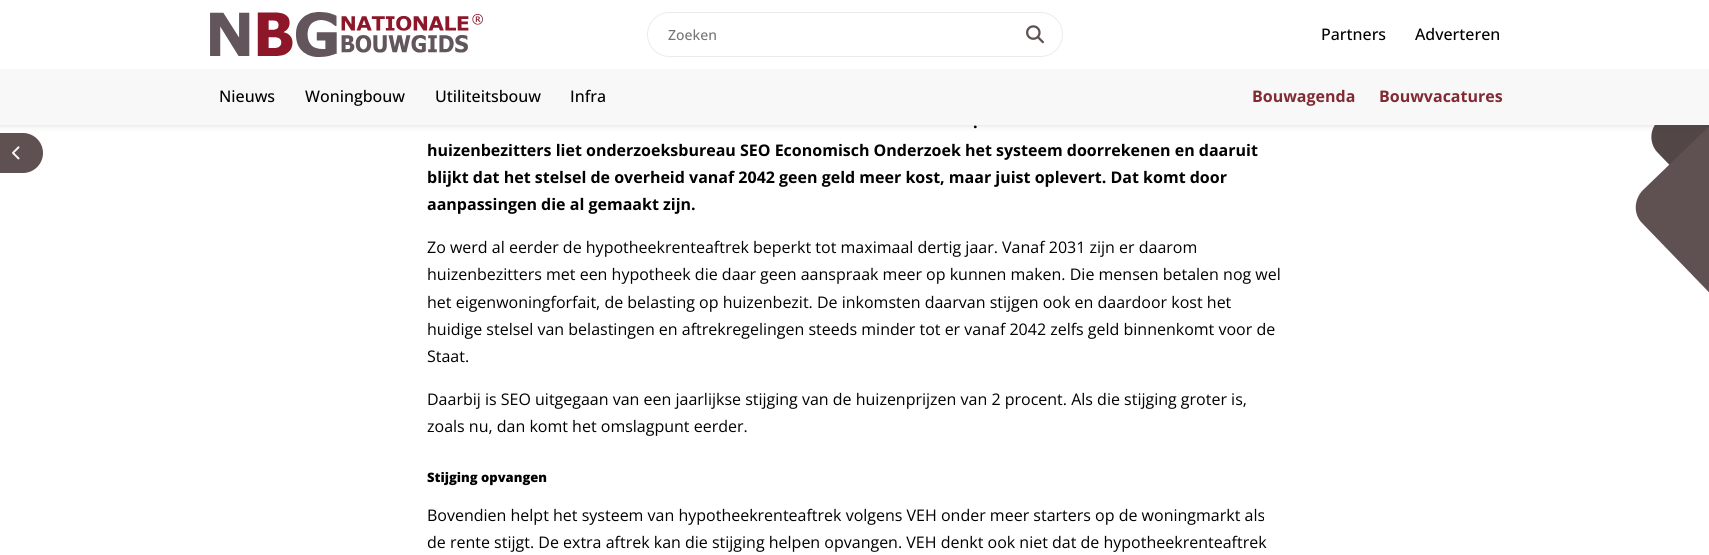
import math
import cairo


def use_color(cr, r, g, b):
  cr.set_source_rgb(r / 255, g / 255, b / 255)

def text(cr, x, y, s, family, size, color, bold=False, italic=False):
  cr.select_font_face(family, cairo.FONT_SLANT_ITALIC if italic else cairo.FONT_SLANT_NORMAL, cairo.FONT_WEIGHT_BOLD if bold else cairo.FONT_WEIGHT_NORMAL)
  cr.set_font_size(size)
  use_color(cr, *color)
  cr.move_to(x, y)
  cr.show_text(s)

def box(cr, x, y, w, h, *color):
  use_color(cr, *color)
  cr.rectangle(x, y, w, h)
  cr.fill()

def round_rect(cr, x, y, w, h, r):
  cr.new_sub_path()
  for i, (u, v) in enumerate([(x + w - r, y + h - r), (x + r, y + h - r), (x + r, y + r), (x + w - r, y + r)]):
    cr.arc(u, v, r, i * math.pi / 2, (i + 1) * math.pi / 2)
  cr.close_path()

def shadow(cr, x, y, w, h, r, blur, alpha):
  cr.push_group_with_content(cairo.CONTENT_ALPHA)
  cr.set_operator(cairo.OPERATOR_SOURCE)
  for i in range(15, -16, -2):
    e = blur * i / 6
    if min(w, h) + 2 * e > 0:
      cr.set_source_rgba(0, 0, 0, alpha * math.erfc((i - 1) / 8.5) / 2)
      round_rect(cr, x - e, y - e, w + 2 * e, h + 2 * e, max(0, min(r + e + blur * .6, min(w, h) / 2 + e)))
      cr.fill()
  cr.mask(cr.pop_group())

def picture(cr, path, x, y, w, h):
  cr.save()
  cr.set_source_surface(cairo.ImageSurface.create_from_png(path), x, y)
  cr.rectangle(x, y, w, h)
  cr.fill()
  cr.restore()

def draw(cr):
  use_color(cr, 255, 255, 255)
  cr.paint()
  use_color(cr, 82, 70, 70)
  cr.set_fill_rule(cairo.FILL_RULE_EVEN_ODD)
  cr.new_path()
  cr.move_to(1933, -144)
  cr.line_to(1659, 120)
  cr.curve_to(1649, 129, 1649, 144, 1658, 153)
  cr.line_to(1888, 392)
  cr.curve_to(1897, 401, 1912, 401, 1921, 392)
  cr.line_to(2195, 128)
  cr.curve_to(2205, 119, 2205, 104, 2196, 95)
  cr.line_to(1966, -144)
  cr.curve_to(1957, -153, 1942, -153, 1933, -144)
  cr.close_path()
  cr.fill()
  use_color(cr, 95, 81, 81)
  cr.new_path()
  cr.move_to(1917, -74)
  cr.line_to(1643, 190)
  cr.curve_to(1634, 199, 1633, 214, 1642, 223)
  cr.line_to(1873, 462)
  cr.curve_to(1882, 471, 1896, 471, 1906, 462)
  cr.line_to(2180, 198)
  cr.curve_to(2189, 189, 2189, 174, 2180, 165)
  cr.line_to(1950, -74)
  cr.curve_to(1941, -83, 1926, -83, 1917, -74)
  cr.close_path()
  cr.fill()
  cr.new_path()
  cr.move_to(0, 133)
  cr.line_to(23, 133)
  cr.curve_to(34, 133, 43, 142, 43, 153)
  cr.curve_to(43, 164, 34, 173, 23, 173)
  cr.line_to(0, 173)
  cr.close_path()
  cr.fill()
  use_color(cr, 61, 61, 61)
  shadow(cr, 0, 0, 1709, 125, 0, 3.5, 0.2)
  box(cr, 0, 0, 1709, 69, 255, 255, 255)
  picture(cr, "img_01.png", 210, 12, 273, 45)
  round_rect(cr, 647.5, 12.5, 415, 44, 22)
  use_color(cr, 237, 234, 239)
  cr.set_line_width(1)
  cr.stroke()
  picture(cr, "img_02.png", 1026, 25, 18, 19)
  box(cr, 0, 69, 1709, 56, 248, 248, 248)
  picture(cr, "img_03.png", 12, 146, 8, 14)
  text(cr, 668, 40, "Zoeken", "Open Sans Medium", 14, (117, 117, 117))
  text(cr, 1321, 40, "Partners", "Open Sans Medium", 16, (0, 0, 0))
  text(cr, 1415, 40, "Adverteren", "Open Sans Medium", 16, (0, 0, 0))
  text(cr, 219, 102, "Nieuws", "Open Sans Medium", 16, (0, 0, 0))
  text(cr, 305, 102, "Woningbouw", "Open Sans Medium", 16, (0, 0, 0))
  text(cr, 435, 102, "Utiliteitsbouw", "Open Sans Medium", 16, (0, 0, 0))
  text(cr, 570, 102, "Infra", "Open Sans Medium", 16, (0, 0, 0))
  text(cr, 1252, 102, "Bouwagenda", "Open Sans", 16, (128, 42, 50), bold=True)
  text(cr, 1379, 102, "Bouwvacatures", "Open Sans", 16, (128, 42, 50), bold=True)
  text(cr, 973, 128, ".", "Open Sans", 16, (0, 0, 0), bold=True)
  text(cr, 427, 156, "huizenbezitters liet onderzoeksbureau SEO Economisch Onderzoek het systeem doorrekenen en daaruit", "Open Sans", 16, (0, 0, 0), bold=True)
  text(cr, 427, 183, "blijkt dat het stelsel de overheid vanaf 2042 geen geld meer kost, maar juist oplevert. Dat komt door", "Open Sans", 16, (0, 0, 0), bold=True)
  text(cr, 427, 210, "aanpassingen die al gemaakt zijn.", "Open Sans", 16, (0, 0, 0), bold=True)
  text(cr, 427, 253, "Zo werd al eerder de hypotheekrenteaftrek beperkt tot maximaal dertig jaar. Vanaf 2031 zijn er daarom", "Open Sans", 16, (0, 0, 0))
  text(cr, 427, 280, "huizenbezitters met een hypotheek die daar geen aanspraak meer op kunnen maken. Die mensen betalen nog wel", "Open Sans", 16, (0, 0, 0))
  text(cr, 427, 308, "het eigenwoningforfait, de belasting op huizenbezit. De inkomsten daarvan stijgen ook en daardoor kost het", "Open Sans", 16, (0, 0, 0))
  text(cr, 427, 335, "huidige stelsel van belastingen en aftrekregelingen steeds minder tot er vanaf 2042 zelfs geld binnenkomt voor de", "Open Sans", 16, (0, 0, 0))
  text(cr, 427, 362, "Staat.", "Open Sans", 16, (0, 0, 0))
  text(cr, 427, 405, "Daarbij is SEO uitgegaan van een jaarlijkse stijging van de huizenprijzen van 2 procent. Als die stijging groter is,", "Open Sans", 16, (0, 0, 0))
  text(cr, 427, 432, "zoals nu, dan komt het omslagpunt eerder.", "Open Sans", 16, (0, 0, 0))
  text(cr, 427, 482, "Stijging opvangen", "Open Sans ExtraBold", 13, (0, 0, 0))
  text(cr, 427, 521, "Bovendien helpt het systeem van hypotheekrenteaftrek volgens VEH onder meer starters op de woningmarkt als", "Open Sans", 16, (0, 0, 0))
  text(cr, 427, 548, "de rente stijgt. De extra aftrek kan die stijging helpen opvangen. VEH denkt ook niet dat de hypotheekrenteaftrek", "Open Sans", 16, (0, 0, 0))


surface = cairo.ImageSurface(cairo.FORMAT_RGB24, 1709, 555)
cr = cairo.Context(surface)
options = cairo.FontOptions()
options.set_hint_metrics(cairo.HINT_METRICS_OFF)
options.set_hint_style(cairo.HINT_STYLE_NONE)
cr.set_font_options(options)
cr.set_miter_limit(4)
draw(cr)
surface.write_to_png("out.png")
